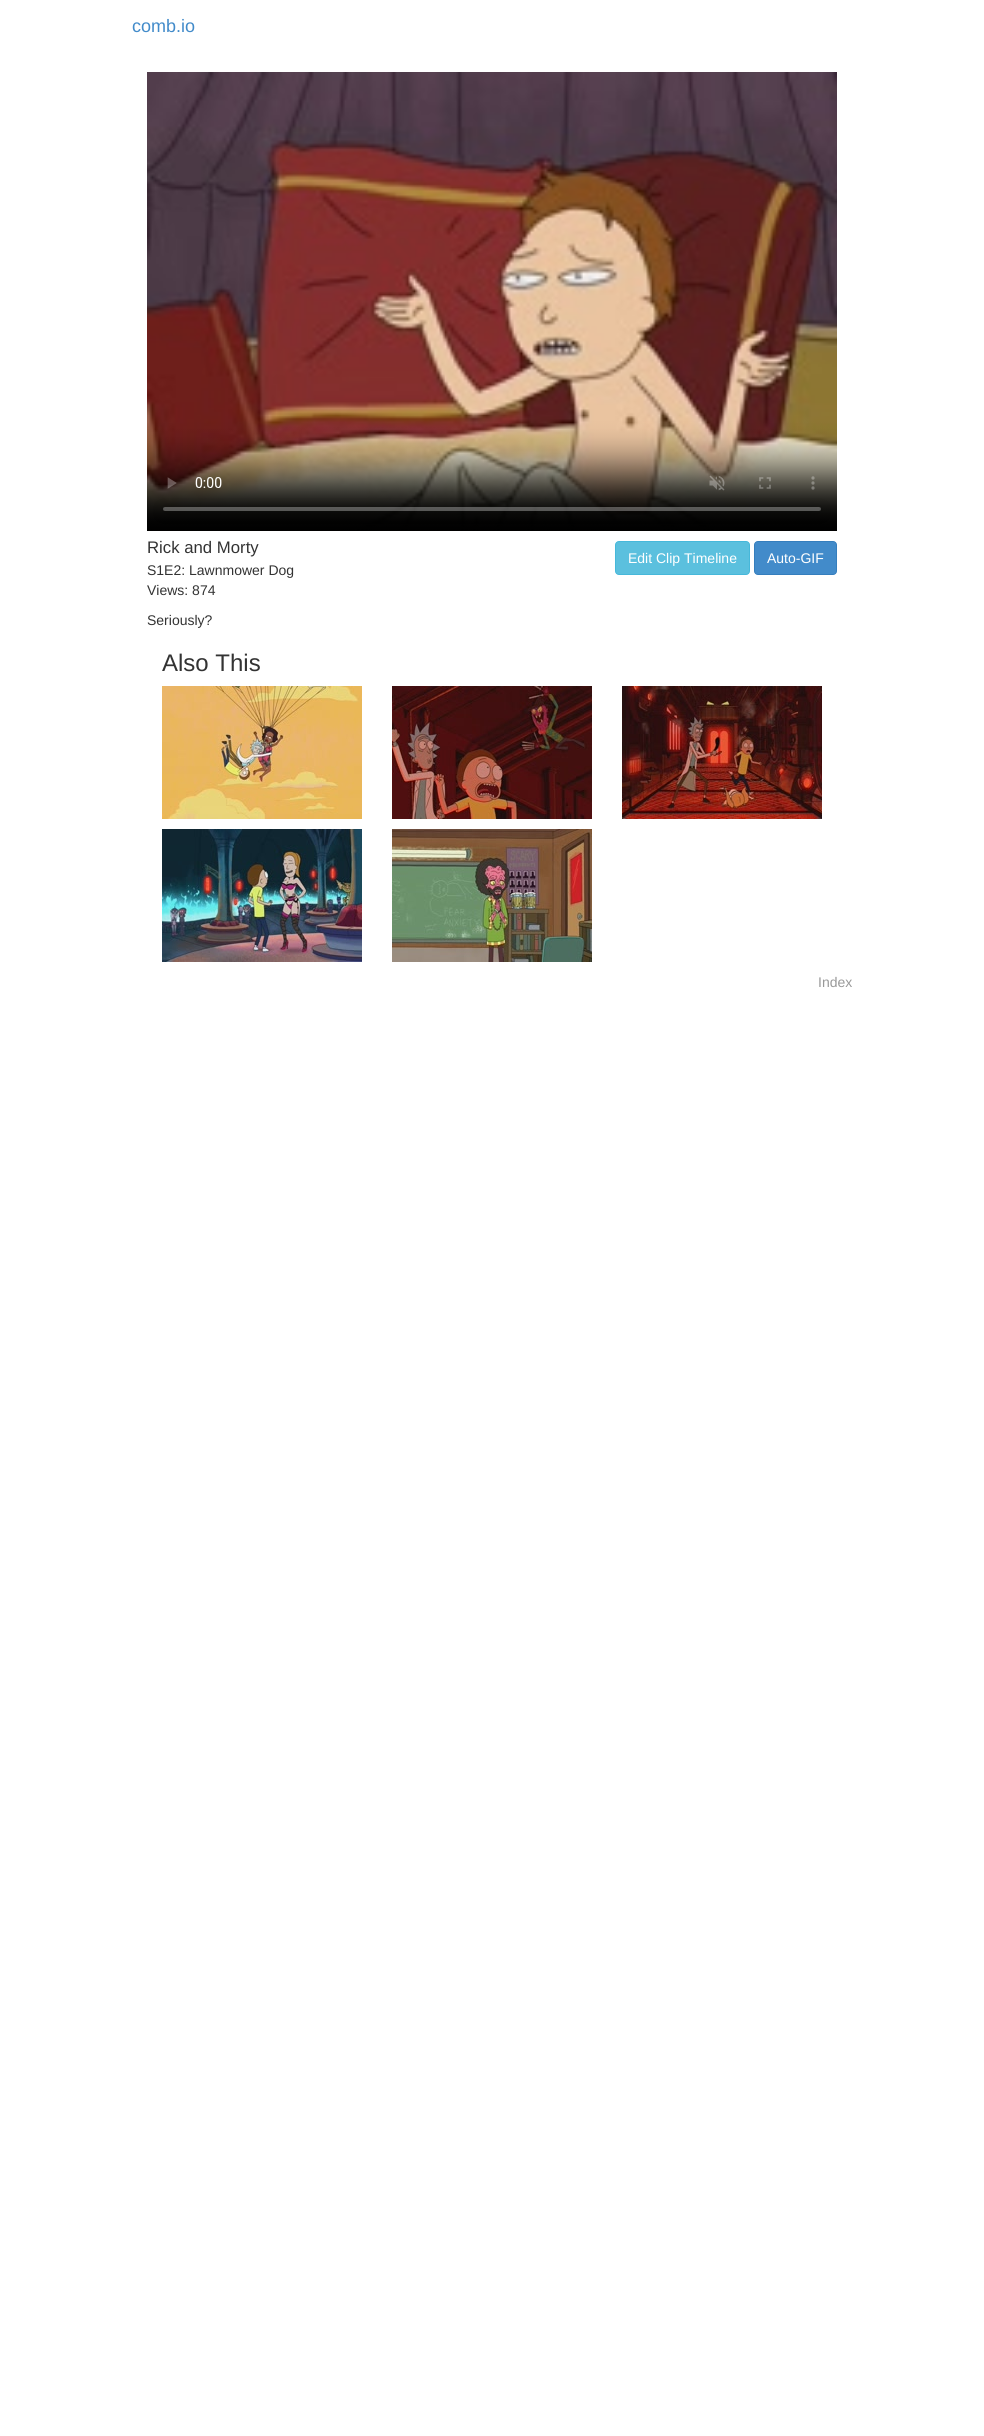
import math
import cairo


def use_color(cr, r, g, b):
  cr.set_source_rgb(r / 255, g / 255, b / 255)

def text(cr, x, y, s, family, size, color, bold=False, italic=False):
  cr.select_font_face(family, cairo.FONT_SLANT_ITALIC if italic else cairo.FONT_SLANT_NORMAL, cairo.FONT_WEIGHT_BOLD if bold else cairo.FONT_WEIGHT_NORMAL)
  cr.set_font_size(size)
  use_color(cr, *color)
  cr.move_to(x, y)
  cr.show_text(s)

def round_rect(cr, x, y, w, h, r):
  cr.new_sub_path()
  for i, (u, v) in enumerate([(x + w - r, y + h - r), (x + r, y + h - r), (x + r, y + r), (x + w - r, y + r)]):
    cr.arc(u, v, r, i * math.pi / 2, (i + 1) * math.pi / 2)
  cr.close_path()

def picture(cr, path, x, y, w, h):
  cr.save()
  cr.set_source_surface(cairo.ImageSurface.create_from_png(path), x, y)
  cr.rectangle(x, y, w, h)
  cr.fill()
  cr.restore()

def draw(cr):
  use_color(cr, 255, 255, 255)
  cr.paint()
  picture(cr, "img_01.png", 147, 72, 690, 459)
  use_color(cr, 91, 192, 222)
  round_rect(cr, 615.5, 541.5, 134, 33, 3.5)
  cr.fill_preserve()
  use_color(cr, 70, 184, 218)
  cr.set_line_width(1)
  cr.stroke()
  use_color(cr, 66, 139, 202)
  round_rect(cr, 754.5, 541.5, 82, 33, 3.5)
  cr.fill_preserve()
  use_color(cr, 53, 126, 189)
  cr.stroke()
  picture(cr, "img_02.png", 162, 686, 200, 133)
  picture(cr, "img_03.png", 392, 686, 200, 133)
  picture(cr, "img_04.png", 622, 686, 200, 133)
  picture(cr, "img_05.png", 162, 829, 200, 133)
  picture(cr, "img_06.png", 392, 829, 200, 133)
  text(cr, 132, 32, "comb.io", "Liberation Sans", 18, (66, 139, 202))
  text(cr, 147, 553, "Rick and Morty", "Liberation Sans", 16.75, (51, 51, 51))
  text(cr, 147, 575, "S1E2: Lawnmower Dog", "Liberation Sans", 14, (51, 51, 51))
  text(cr, 147, 595, "Views: 874", "Liberation Sans", 14, (51, 51, 51))
  text(cr, 147, 625, "Seriously?", "Liberation Sans", 14, (51, 51, 51))
  text(cr, 628, 563, "Edit Clip Timeline", "Liberation Sans", 14, (255, 255, 255))
  text(cr, 767, 563, "Auto-GIF", "Liberation Sans", 14, (255, 255, 255))
  text(cr, 162, 671, "Also This", "Liberation Sans", 24, (51, 51, 51))
  text(cr, 818, 987, "Index", "Liberation Sans", 14, (153, 153, 153))


surface = cairo.ImageSurface(cairo.FORMAT_RGB24, 984, 2436)
cr = cairo.Context(surface)
options = cairo.FontOptions()
options.set_hint_metrics(cairo.HINT_METRICS_OFF)
options.set_hint_style(cairo.HINT_STYLE_NONE)
cr.set_font_options(options)
cr.set_miter_limit(4)
draw(cr)
surface.write_to_png("out.png")
